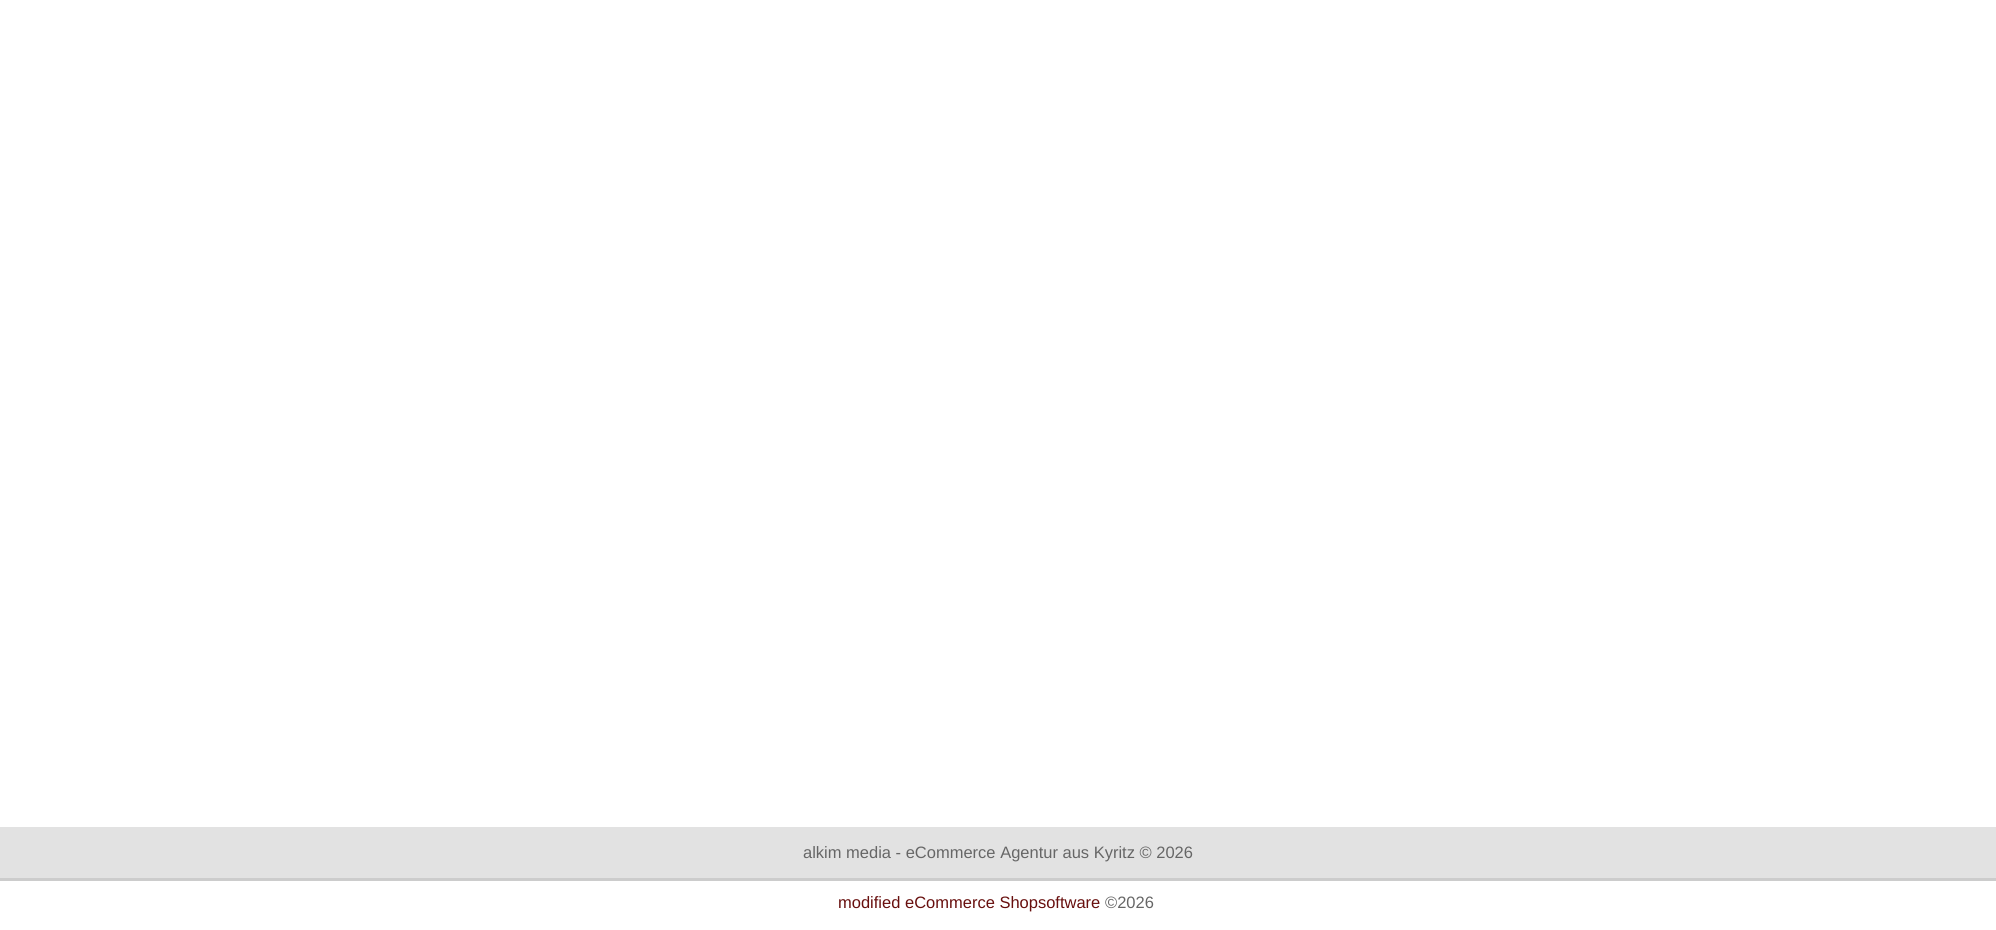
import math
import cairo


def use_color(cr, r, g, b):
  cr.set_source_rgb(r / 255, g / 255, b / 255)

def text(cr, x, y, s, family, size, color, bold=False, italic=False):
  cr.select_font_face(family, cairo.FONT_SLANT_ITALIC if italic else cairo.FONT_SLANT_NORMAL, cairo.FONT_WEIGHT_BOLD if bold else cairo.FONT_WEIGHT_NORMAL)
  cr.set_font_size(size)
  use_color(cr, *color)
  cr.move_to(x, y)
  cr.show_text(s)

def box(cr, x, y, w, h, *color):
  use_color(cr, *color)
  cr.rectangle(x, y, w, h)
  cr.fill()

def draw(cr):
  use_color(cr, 255, 255, 255)
  cr.paint()
  box(cr, 0, 827, 1996, 51, 226, 226, 226)
  box(cr, 0, 878, 1996, 3, 204, 204, 204)
  text(cr, 803, 858, "alkim media - eCommerce Agentur aus Kyritz © 2026", "Liberation Sans", 16.5, (102, 102, 102))
  text(cr, 838, 908, "modified eCommerce Shopsoftware", "Liberation Sans", 16.5, (104, 15, 14))
  text(cr, 1105, 908, "©2026", "Liberation Sans", 16.5, (102, 102, 102))


surface = cairo.ImageSurface(cairo.FORMAT_RGB24, 1996, 930)
cr = cairo.Context(surface)
options = cairo.FontOptions()
options.set_hint_metrics(cairo.HINT_METRICS_OFF)
options.set_hint_style(cairo.HINT_STYLE_NONE)
cr.set_font_options(options)
cr.set_miter_limit(4)
draw(cr)
surface.write_to_png("out.png")
